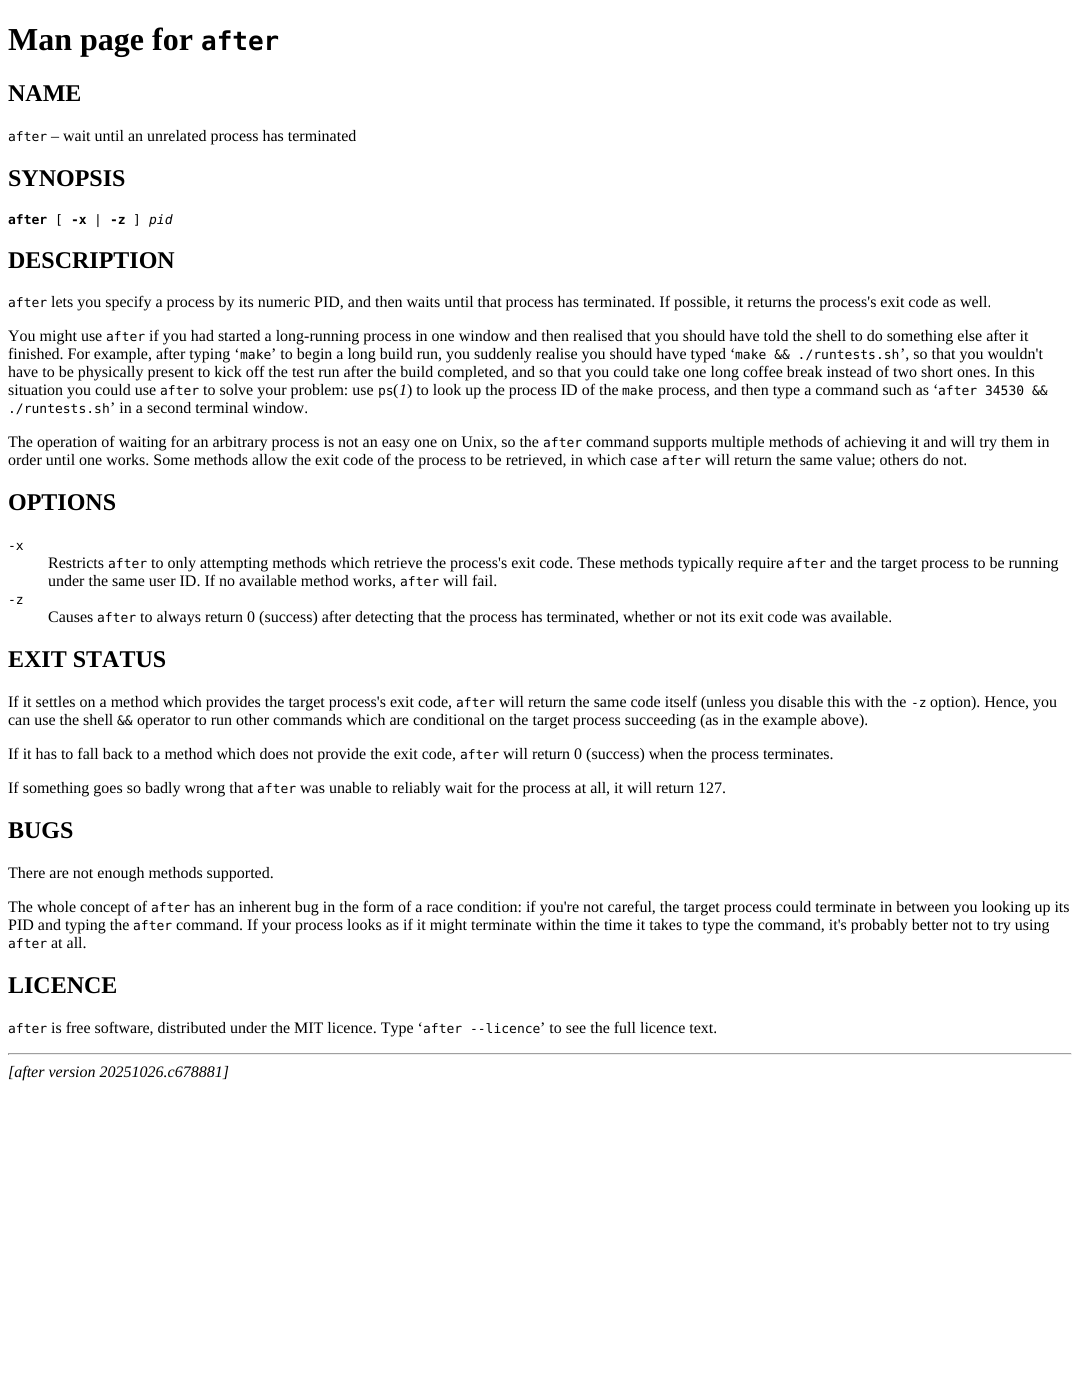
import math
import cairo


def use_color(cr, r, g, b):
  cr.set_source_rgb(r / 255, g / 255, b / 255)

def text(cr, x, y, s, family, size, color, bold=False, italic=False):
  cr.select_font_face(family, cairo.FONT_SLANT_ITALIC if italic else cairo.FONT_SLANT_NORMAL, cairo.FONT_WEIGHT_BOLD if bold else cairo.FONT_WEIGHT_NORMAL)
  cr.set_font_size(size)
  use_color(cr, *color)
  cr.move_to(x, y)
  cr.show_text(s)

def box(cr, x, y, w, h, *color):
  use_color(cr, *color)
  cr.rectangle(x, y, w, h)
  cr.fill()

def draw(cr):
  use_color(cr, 255, 255, 255)
  cr.paint()
  box(cr, 8, 1053, 1064, 1, 159, 159, 159)
  box(cr, 1071, 1053, 1, 2, 238, 238, 238)
  box(cr, 8, 1054, 1064, 1, 238, 238, 238)
  box(cr, 8, 1053, 1, 2, 159, 159, 159)
  text(cr, 8, 50, "Man page for", "Liberation Serif", 32, (0, 0, 0), bold=True)
  text(cr, 201, 50, "after", "DejaVu Sans Mono", 26, (0, 0, 0), bold=True)
  text(cr, 8, 101, "NAME", "Liberation Serif", 24, (0, 0, 0), bold=True)
  text(cr, 8, 141, "after", "DejaVu Sans Mono", 13, (0, 0, 0))
  text(cr, 51, 141, "– wait until an unrelated process has terminated", "Liberation Serif", 16, (0, 0, 0))
  text(cr, 8, 186, "SYNOPSIS", "Liberation Serif", 24, (0, 0, 0), bold=True)
  text(cr, 8, 224, "after", "DejaVu Sans Mono", 13, (0, 0, 0), bold=True)
  text(cr, 55, 224, "[", "DejaVu Sans Mono", 13, (0, 0, 0))
  text(cr, 71, 224, "-x", "DejaVu Sans Mono", 13, (0, 0, 0), bold=True)
  text(cr, 94, 224, "|", "DejaVu Sans Mono", 13, (0, 0, 0))
  text(cr, 110, 224, "-z", "DejaVu Sans Mono", 13, (0, 0, 0), bold=True)
  text(cr, 133, 224, "]", "DejaVu Sans Mono", 13, (0, 0, 0))
  text(cr, 149, 224, "pid", "DejaVu Sans Mono", 13, (0, 0, 0), italic=True)
  text(cr, 8, 268, "DESCRIPTION", "Liberation Serif", 24, (0, 0, 0), bold=True)
  text(cr, 8, 307, "after", "DejaVu Sans Mono", 13, (0, 0, 0))
  text(cr, 51, 307, "lets you specify a process by its numeric PID, and then waits until that process has terminated. If possible, it returns the process's exit code as well.", "Liberation Serif", 16, (0, 0, 0))
  text(cr, 8, 341, "You might use", "Liberation Serif", 16, (0, 0, 0))
  text(cr, 106, 341, "after", "DejaVu Sans Mono", 13, (0, 0, 0))
  text(cr, 149, 341, "if you had started a long-running process in one window and then realised that you should have told the shell to do something else after it", "Liberation Serif", 16, (0, 0, 0))
  text(cr, 8, 359, "finished. For example, after typing ‘", "Liberation Serif", 16, (0, 0, 0))
  text(cr, 240, 359, "make", "DejaVu Sans Mono", 13, (0, 0, 0))
  text(cr, 271, 359, "’ to begin a long build run, you suddenly realise you should have typed ‘", "Liberation Serif", 16, (0, 0, 0))
  text(cr, 735, 359, "make && ./runtests.sh", "DejaVu Sans Mono", 13, (0, 0, 0))
  text(cr, 900, 359, "’, so that you wouldn't", "Liberation Serif", 16, (0, 0, 0))
  text(cr, 8, 377, "have to be physically present to kick off the test run after the build completed, and so that you could take one long coffee break instead of two short ones. In this", "Liberation Serif", 16, (0, 0, 0))
  text(cr, 8, 395, "situation you could use", "Liberation Serif", 16, (0, 0, 0))
  text(cr, 160, 395, "after", "DejaVu Sans Mono", 13, (0, 0, 0))
  text(cr, 203, 395, "to solve your problem: use", "Liberation Serif", 16, (0, 0, 0))
  text(cr, 378, 395, "ps", "DejaVu Sans Mono", 13, (0, 0, 0))
  text(cr, 393, 395, "(", "Liberation Serif", 16, (0, 0, 0))
  text(cr, 399, 395, "1", "Liberation Serif", 16, (0, 0, 0), italic=True)
  text(cr, 407, 395, ") to look up the process ID of the", "Liberation Serif", 16, (0, 0, 0))
  text(cr, 622, 395, "make", "DejaVu Sans Mono", 13, (0, 0, 0))
  text(cr, 658, 395, "process, and then type a command such as ‘", "Liberation Serif", 16, (0, 0, 0))
  text(cr, 938, 395, "after 34530 &&", "DejaVu Sans Mono", 13, (0, 0, 0))
  text(cr, 8, 413, "./runtests.sh", "DejaVu Sans Mono", 13, (0, 0, 0))
  text(cr, 110, 413, "’ in a second terminal window.", "Liberation Serif", 16, (0, 0, 0))
  text(cr, 8, 447, "The operation of waiting for an arbitrary process is not an easy one on Unix, so the", "Liberation Serif", 16, (0, 0, 0))
  text(cr, 543, 447, "after", "DejaVu Sans Mono", 13, (0, 0, 0))
  text(cr, 586, 447, "command supports multiple methods of achieving it and will try them in", "Liberation Serif", 16, (0, 0, 0))
  text(cr, 8, 465, "order until one works. Some methods allow the exit code of the process to be retrieved, in which case", "Liberation Serif", 16, (0, 0, 0))
  text(cr, 662, 465, "after", "DejaVu Sans Mono", 13, (0, 0, 0))
  text(cr, 705, 465, "will return the same value; others do not.", "Liberation Serif", 16, (0, 0, 0))
  text(cr, 8, 510, "OPTIONS", "Liberation Serif", 24, (0, 0, 0), bold=True)
  text(cr, 8, 550, "-x", "DejaVu Sans Mono", 13, (0, 0, 0))
  text(cr, 48, 568, "Restricts", "Liberation Serif", 16, (0, 0, 0))
  text(cr, 108, 568, "after", "DejaVu Sans Mono", 13, (0, 0, 0))
  text(cr, 151, 568, "to only attempting methods which retrieve the process's exit code. These methods typically require", "Liberation Serif", 16, (0, 0, 0))
  text(cr, 787, 568, "after", "DejaVu Sans Mono", 13, (0, 0, 0))
  text(cr, 830, 568, "and the target process to be running", "Liberation Serif", 16, (0, 0, 0))
  text(cr, 48, 586, "under the same user ID. If no available method works,", "Liberation Serif", 16, (0, 0, 0))
  text(cr, 400, 586, "after", "DejaVu Sans Mono", 13, (0, 0, 0))
  text(cr, 443, 586, "will fail.", "Liberation Serif", 16, (0, 0, 0))
  text(cr, 8, 604, "-z", "DejaVu Sans Mono", 13, (0, 0, 0))
  text(cr, 48, 622, "Causes", "Liberation Serif", 16, (0, 0, 0))
  text(cr, 97, 622, "after", "DejaVu Sans Mono", 13, (0, 0, 0))
  text(cr, 140, 622, "to always return 0 (success) after detecting that the process has terminated, whether or not its exit code was available.", "Liberation Serif", 16, (0, 0, 0))
  text(cr, 8, 667, "EXIT STATUS", "Liberation Serif", 24, (0, 0, 0), bold=True)
  text(cr, 8, 707, "If it settles on a method which provides the target process's exit code,", "Liberation Serif", 16, (0, 0, 0))
  text(cr, 456, 707, "after", "DejaVu Sans Mono", 13, (0, 0, 0))
  text(cr, 499, 707, "will return the same code itself (unless you disable this with the", "Liberation Serif", 16, (0, 0, 0))
  text(cr, 911, 707, "-z", "DejaVu Sans Mono", 13, (0, 0, 0))
  text(cr, 930, 707, "option). Hence, you", "Liberation Serif", 16, (0, 0, 0))
  text(cr, 8, 725, "can use the shell", "Liberation Serif", 16, (0, 0, 0))
  text(cr, 117, 725, "&&", "DejaVu Sans Mono", 13, (0, 0, 0))
  text(cr, 137, 725, "operator to run other commands which are conditional on the target process succeeding (as in the example above).", "Liberation Serif", 16, (0, 0, 0))
  text(cr, 8, 759, "If it has to fall back to a method which does not provide the exit code,", "Liberation Serif", 16, (0, 0, 0))
  text(cr, 460, 759, "after", "DejaVu Sans Mono", 13, (0, 0, 0))
  text(cr, 503, 759, "will return 0 (success) when the process terminates.", "Liberation Serif", 16, (0, 0, 0))
  text(cr, 8, 793, "If something goes so badly wrong that", "Liberation Serif", 16, (0, 0, 0))
  text(cr, 257, 793, "after", "DejaVu Sans Mono", 13, (0, 0, 0))
  text(cr, 300, 793, "was unable to reliably wait for the process at all, it will return 127.", "Liberation Serif", 16, (0, 0, 0))
  text(cr, 8, 838, "BUGS", "Liberation Serif", 24, (0, 0, 0), bold=True)
  text(cr, 8, 878, "There are not enough methods supported.", "Liberation Serif", 16, (0, 0, 0))
  text(cr, 8, 912, "The whole concept of", "Liberation Serif", 16, (0, 0, 0))
  text(cr, 151, 912, "after", "DejaVu Sans Mono", 13, (0, 0, 0))
  text(cr, 194, 912, "has an inherent bug in the form of a race condition: if you're not careful, the target process could terminate in between you looking up its", "Liberation Serif", 16, (0, 0, 0))
  text(cr, 8, 930, "PID and typing the", "Liberation Serif", 16, (0, 0, 0))
  text(cr, 133, 930, "after", "DejaVu Sans Mono", 13, (0, 0, 0))
  text(cr, 176, 930, "command. If your process looks as if it might terminate within the time it takes to type the command, it's probably better not to try using", "Liberation Serif", 16, (0, 0, 0))
  text(cr, 8, 948, "after", "DejaVu Sans Mono", 13, (0, 0, 0))
  text(cr, 51, 948, "at all.", "Liberation Serif", 16, (0, 0, 0))
  text(cr, 8, 993, "LICENCE", "Liberation Serif", 24, (0, 0, 0), bold=True)
  text(cr, 8, 1033, "after", "DejaVu Sans Mono", 13, (0, 0, 0))
  text(cr, 51, 1033, "is free software, distributed under the MIT licence. Type ‘", "Liberation Serif", 16, (0, 0, 0))
  text(cr, 423, 1033, "after --licence", "DejaVu Sans Mono", 13, (0, 0, 0))
  text(cr, 540, 1033, "’ to see the full licence text.", "Liberation Serif", 16, (0, 0, 0))
  text(cr, 8, 1077, "[after version 20251026.c678881]", "Liberation Serif", 16, (0, 0, 0), italic=True)


surface = cairo.ImageSurface(cairo.FORMAT_RGB24, 1080, 1387)
cr = cairo.Context(surface)
options = cairo.FontOptions()
options.set_hint_metrics(cairo.HINT_METRICS_OFF)
options.set_hint_style(cairo.HINT_STYLE_NONE)
cr.set_font_options(options)
cr.set_miter_limit(4)
draw(cr)
surface.write_to_png("out.png")
